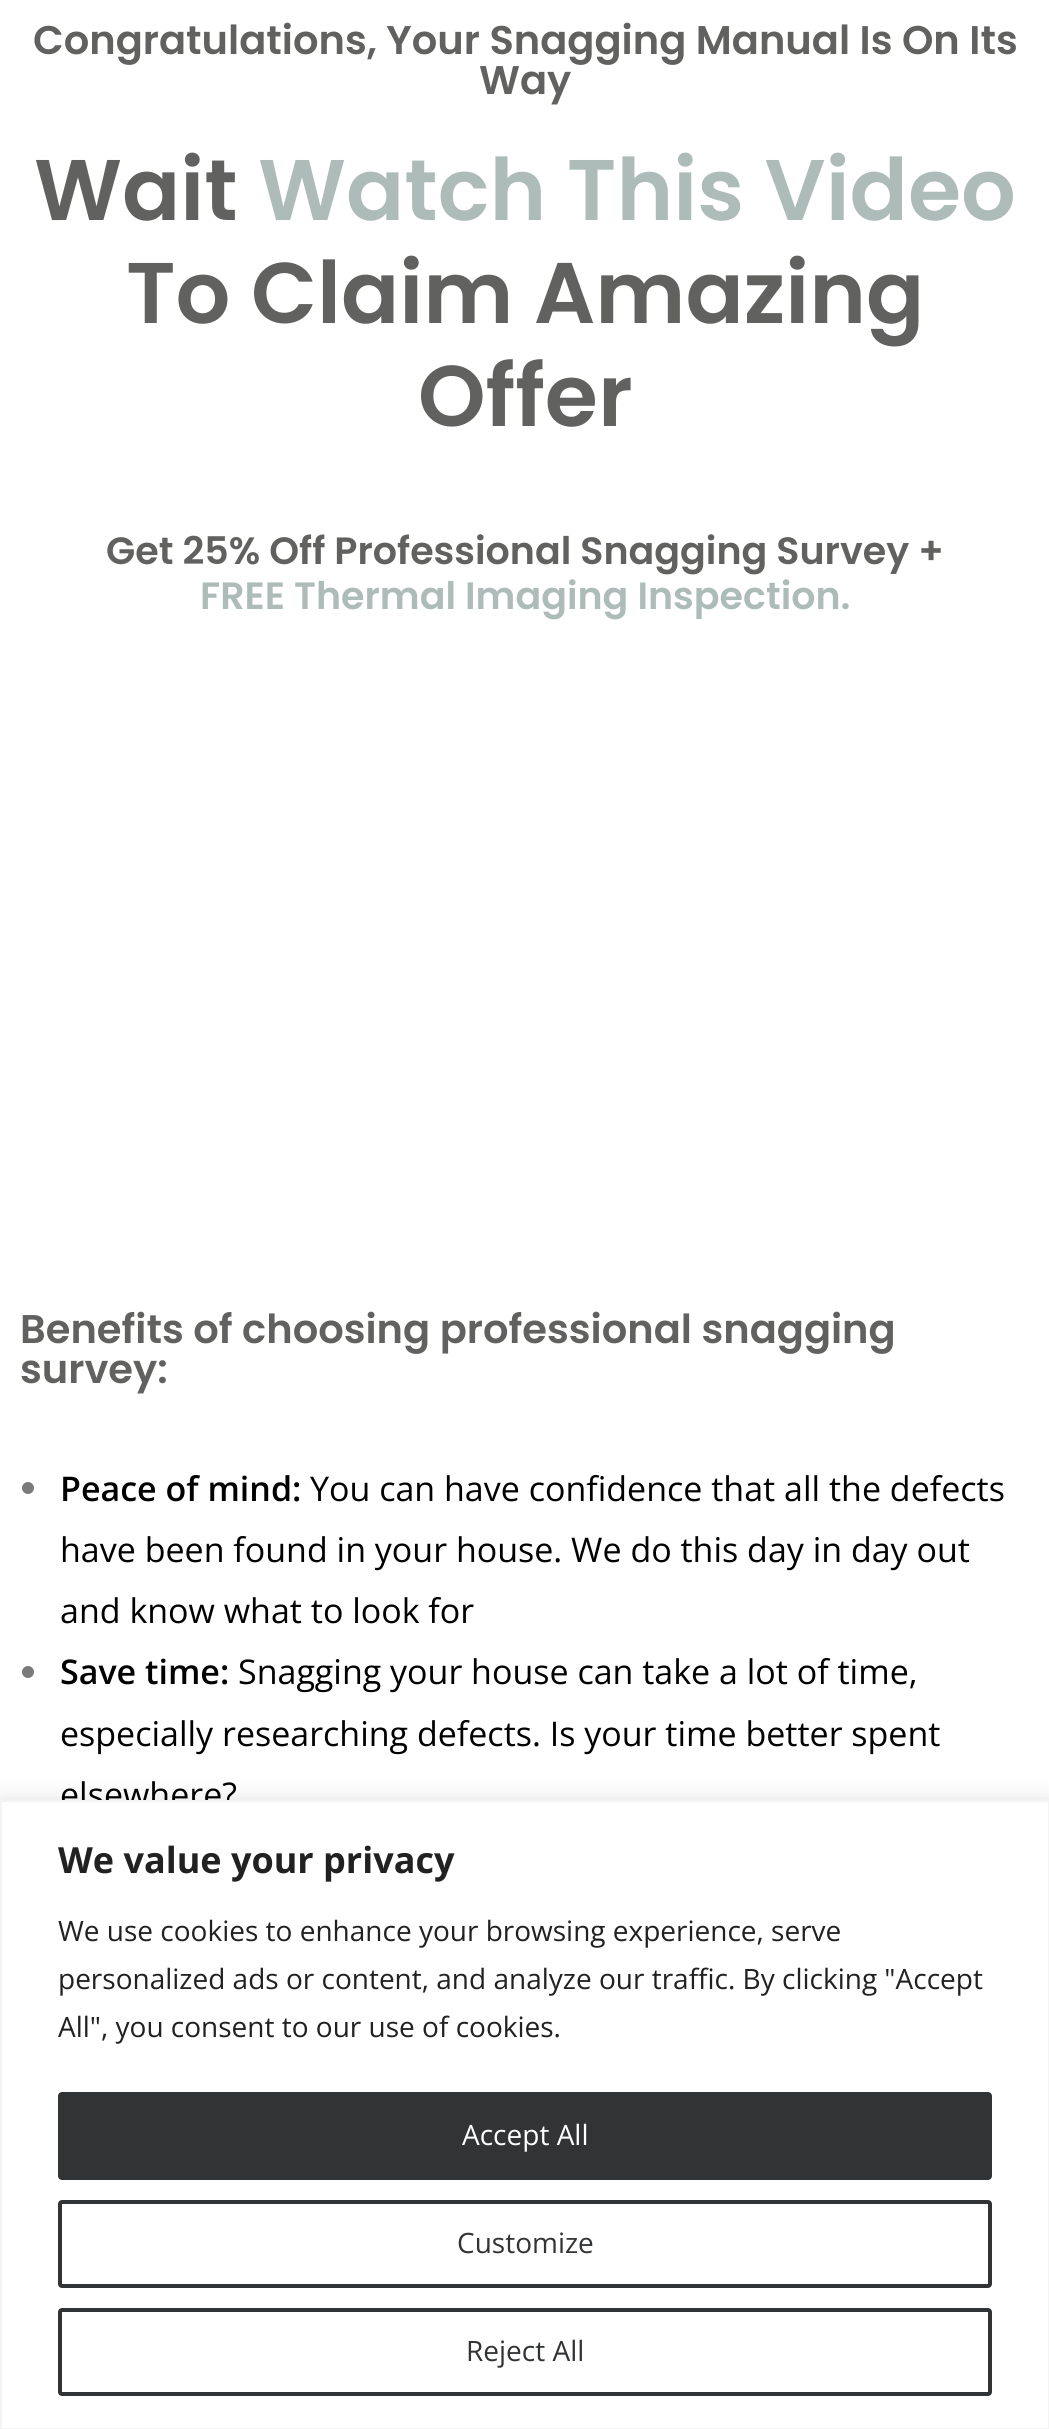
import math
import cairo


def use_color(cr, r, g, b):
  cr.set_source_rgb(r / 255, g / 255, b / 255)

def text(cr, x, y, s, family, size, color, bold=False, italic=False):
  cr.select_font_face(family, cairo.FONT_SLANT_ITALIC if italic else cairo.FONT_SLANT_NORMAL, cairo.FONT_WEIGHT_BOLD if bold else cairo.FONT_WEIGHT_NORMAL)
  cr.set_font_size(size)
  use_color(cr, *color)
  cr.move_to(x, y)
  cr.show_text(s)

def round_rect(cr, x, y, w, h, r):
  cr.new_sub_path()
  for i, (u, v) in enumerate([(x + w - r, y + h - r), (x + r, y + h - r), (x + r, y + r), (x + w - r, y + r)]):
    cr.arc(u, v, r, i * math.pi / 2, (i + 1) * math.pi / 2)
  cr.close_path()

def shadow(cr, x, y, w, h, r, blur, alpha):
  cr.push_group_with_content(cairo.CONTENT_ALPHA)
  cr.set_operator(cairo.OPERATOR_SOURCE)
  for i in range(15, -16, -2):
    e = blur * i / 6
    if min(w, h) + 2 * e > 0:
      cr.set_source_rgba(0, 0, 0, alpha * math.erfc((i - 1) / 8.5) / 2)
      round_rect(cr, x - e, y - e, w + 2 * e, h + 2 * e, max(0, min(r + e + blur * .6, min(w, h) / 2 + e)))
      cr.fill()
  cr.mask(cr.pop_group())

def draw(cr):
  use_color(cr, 255, 255, 255)
  cr.paint()
  use_color(cr, 122, 122, 122)
  cr.arc(28, 1488, 6, 0, 2 * math.pi)
  cr.fill()
  cr.arc(28, 1672, 6, 0, 2 * math.pi)
  cr.fill()
  use_color(cr, 172, 171, 171)
  shadow(cr, 0, 1798, 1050, 630, 0, 10, 0.3)
  text(cr, 33, 54, "Congratulations, Your Snagging Manual Is On Its", "Poppins SemiBold", 40, (97, 97, 96))
  text(cr, 479, 94, "Way", "Poppins SemiBold", 40, (97, 97, 96))
  text(cr, 34, 220, "Wait", "Poppins SemiBold", 86, (97, 97, 96))
  text(cr, 258, 220, "Watch This Video", "Poppins SemiBold", 86, (174, 188, 185))
  text(cr, 126, 323, "To Claim Amazing", "Poppins SemiBold", 86, (97, 97, 96))
  text(cr, 418, 426, "Offer", "Poppins SemiBold", 86, (97, 97, 96))
  text(cr, 106, 564, "Get 25% Off Professional Snagging Survey +", "Poppins SemiBold", 38, (97, 97, 96))
  text(cr, 200, 609, "FREE Thermal Imaging Inspection.", "Poppins SemiBold", 38, (174, 188, 185))
  text(cr, 20, 1343, "Benefits of choosing professional snagging", "Poppins SemiBold", 40, (97, 97, 96))
  text(cr, 20, 1383, "survey:", "Poppins SemiBold", 40, (97, 97, 96))
  text(cr, 60, 1501, "Peace of mind:", "Open Sans SemiBold", 34, (0, 0, 0))
  text(cr, 310, 1501, "You can have confidence that all the defects", "Open Sans", 34, (0, 0, 0))
  text(cr, 60, 1562, "have been found in your house. We do this day in day out", "Open Sans", 34, (0, 0, 0))
  text(cr, 60, 1623, "and know what to look for", "Open Sans", 34, (0, 0, 0))
  text(cr, 60, 1684, "Save time:", "Open Sans SemiBold", 34, (0, 0, 0))
  text(cr, 238, 1684, "Snagging your house can take a lot of time,", "Open Sans", 34, (0, 0, 0))
  text(cr, 60, 1746, "especially researching defects. Is your time better spent", "Open Sans", 34, (0, 0, 0))
  text(cr, 60, 1807, "elsewhere?", "Open Sans", 34, (0, 0, 0))
  use_color(cr, 255, 255, 255)
  cr.rectangle(1, 1801, 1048, 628)
  cr.fill_preserve()
  use_color(cr, 244, 244, 244)
  cr.stroke()
  text(cr, 58, 1873, "We value your privacy", "Open Sans", 36, (33, 33, 33), bold=True)
  text(cr, 58, 1941, "We use cookies to enhance your browsing experience, serve", "Open Sans", 28, (33, 33, 33))
  text(cr, 58, 1989, "personalized ads or content, and analyze our traffic. By clicking \"Accept", "Open Sans", 28, (33, 33, 33))
  text(cr, 58, 2037, "All\", you consent to our use of cookies.", "Open Sans", 28, (33, 33, 33))
  use_color(cr, 50, 51, 53)
  round_rect(cr, 60, 2094, 930, 84, 2)
  cr.fill_preserve()
  cr.set_line_width(4)
  cr.stroke()
  text(cr, 462, 2145, "Accept All", "Open Sans", 28, (255, 255, 255))
  round_rect(cr, 60, 2202, 930, 84, 2)
  use_color(cr, 50, 51, 53)
  cr.stroke()
  text(cr, 457, 2253, "Customize", "Open Sans", 28, (50, 51, 53))
  round_rect(cr, 60, 2310, 930, 84, 2)
  cr.stroke()
  text(cr, 466, 2361, "Reject All", "Open Sans", 28, (50, 51, 53))


surface = cairo.ImageSurface(cairo.FORMAT_RGB24, 1049, 2429)
cr = cairo.Context(surface)
options = cairo.FontOptions()
options.set_hint_metrics(cairo.HINT_METRICS_OFF)
options.set_hint_style(cairo.HINT_STYLE_NONE)
cr.set_font_options(options)
cr.set_miter_limit(4)
draw(cr)
surface.write_to_png("out.png")
